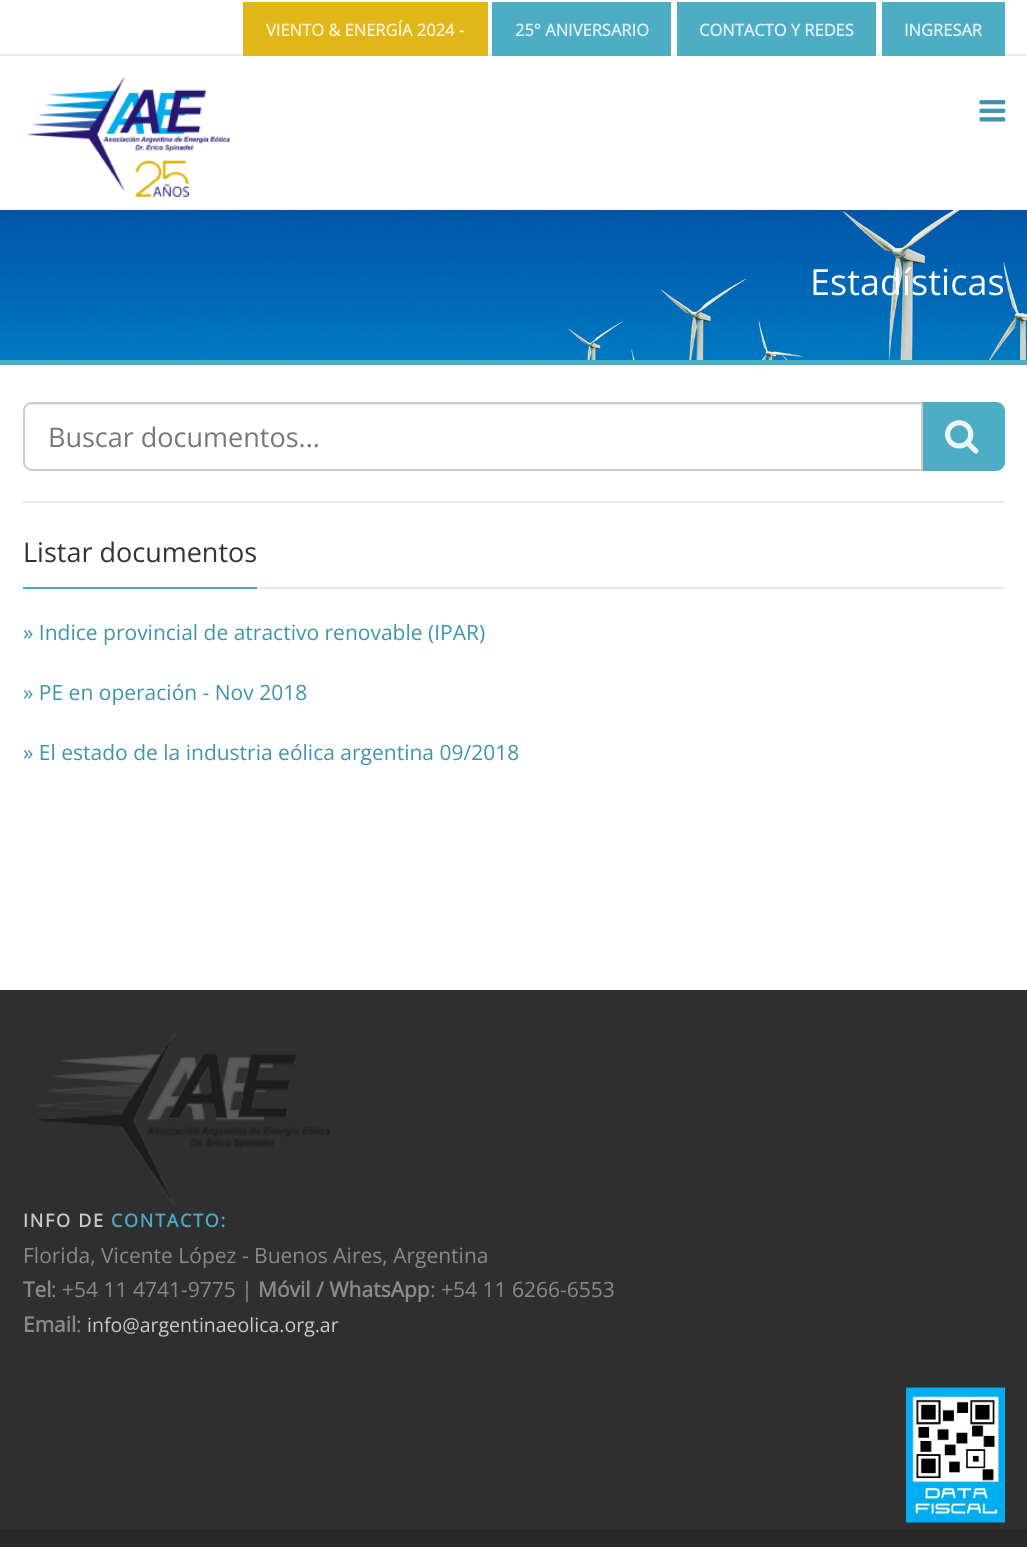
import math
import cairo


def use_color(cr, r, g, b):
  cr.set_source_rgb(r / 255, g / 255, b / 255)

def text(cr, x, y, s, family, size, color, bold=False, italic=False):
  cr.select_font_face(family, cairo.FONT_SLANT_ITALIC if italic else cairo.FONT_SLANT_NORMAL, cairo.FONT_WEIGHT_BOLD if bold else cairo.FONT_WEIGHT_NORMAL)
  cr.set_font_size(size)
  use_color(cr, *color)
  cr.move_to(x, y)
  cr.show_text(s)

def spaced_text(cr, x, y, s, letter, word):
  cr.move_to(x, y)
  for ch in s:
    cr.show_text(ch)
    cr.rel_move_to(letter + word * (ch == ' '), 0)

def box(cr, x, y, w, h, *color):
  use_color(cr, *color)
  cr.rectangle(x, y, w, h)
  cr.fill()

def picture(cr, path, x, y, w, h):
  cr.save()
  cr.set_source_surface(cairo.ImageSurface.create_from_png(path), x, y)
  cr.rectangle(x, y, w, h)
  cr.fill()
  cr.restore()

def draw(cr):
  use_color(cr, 255, 255, 255)
  cr.paint()
  box(cr, 0, 54, 1027, 2, 234, 234, 234)
  box(cr, 243, 2, 245, 54, 224, 183, 23)
  box(cr, 492, 2, 179, 54, 76, 173, 197)
  box(cr, 677, 2, 199, 54, 76, 173, 197)
  box(cr, 882, 2, 123, 54, 76, 173, 197)
  picture(cr, "img_01.png", 26, 76, 204, 121)
  picture(cr, "img_02.png", 979, 100, 27, 22)
  picture(cr, "img_03.png", 0, 210, 1027, 150)
  box(cr, 0, 360, 1027, 5, 76, 173, 197)
  cr.new_path()
  cr.move_to(921, 402)
  cr.line_to(996, 402)
  cr.curve_to(1001, 402, 1005, 406, 1005, 411)
  cr.line_to(1005, 462)
  cr.curve_to(1005, 467, 1001, 471, 996, 471)
  cr.line_to(921, 471)
  cr.close_path()
  cr.fill()
  use_color(cr, 255, 255, 255)
  cr.new_path()
  cr.move_to(32, 402)
  cr.line_to(923, 402)
  cr.line_to(923, 471)
  cr.line_to(32, 471)
  cr.curve_to(27, 471, 23, 467, 23, 462)
  cr.line_to(23, 411)
  cr.curve_to(23, 406, 27, 402, 32, 402)
  cr.close_path()
  cr.fill()
  use_color(cr, 236, 236, 236)
  cr.new_path()
  cr.move_to(32, 405)
  cr.line_to(921, 405)
  cr.line_to(921, 404)
  cr.line_to(32, 404)
  cr.curve_to(28, 404, 24, 408, 24, 412)
  cr.curve_to(24, 408, 27, 405, 32, 405)
  cr.close_path()
  cr.fill()
  cr.new_path()
  cr.move_to(32, 403)
  cr.line_to(922, 403)
  cr.line_to(922, 470)
  cr.line_to(32, 470)
  cr.curve_to(27.5, 470, 24, 466.5, 24, 462)
  cr.line_to(24, 411)
  cr.curve_to(24, 406.5, 27.5, 403, 32, 403)
  cr.close_path()
  use_color(cr, 204, 204, 204)
  cr.stroke()
  picture(cr, "img_04.png", 945, 420, 34, 34)
  box(cr, 23, 501, 982, 2, 232, 232, 232)
  box(cr, 257, 587, 748, 2, 232, 232, 232)
  box(cr, 23, 587, 234, 2, 76, 173, 197)
  box(cr, 0, 990, 1027, 540, 47, 47, 47)
  picture(cr, "img_05.png", 32, 1033, 298, 173)
  picture(cr, "img_06.png", 906, 1387, 99, 136)
  box(cr, 0, 1532, 1027, 15, 41, 41, 41)
  box(cr, 0, 1530, 1027, 2, 37, 37, 37)
  text(cr, 266, 36, "VIENTO & ENERGÍA 2024 -", "Open Sans", 16.5, (249, 241, 209), bold=True)
  text(cr, 515, 36, "25° ANIVERSARIO", "Open Sans", 16.5, (219, 239, 243), bold=True)
  text(cr, 699, 36, "CONTACTO Y REDES", "Open Sans", 16.5, (219, 239, 243), bold=True)
  text(cr, 904, 36, "INGRESAR", "Open Sans", 16.5, (219, 239, 243), bold=True)
  text(cr, 810, 295, "Estadísticas", "Open Sans", 36, (255, 255, 255))
  text(cr, 48, 447, "Buscar documentos...", "Open Sans", 27, (119, 119, 119))
  text(cr, 23, 562, "Listar documentos", "Open Sans", 27, (51, 51, 51))
  text(cr, 23, 640, "» Indice provincial de atractivo renovable (IPAR)", "Open Sans", 21, (62, 149, 171))
  text(cr, 23, 700, "» PE en operación - Nov 2018", "Open Sans", 21, (62, 149, 171))
  text(cr, 23, 760, "» El estado de la industria eólica argentina 09/2018", "Open Sans", 21, (62, 149, 171))
  cr.select_font_face("Open Sans", cairo.FONT_SLANT_NORMAL, cairo.FONT_WEIGHT_BOLD)
  cr.set_font_size(18)
  use_color(cr, 204, 204, 204)
  spaced_text(cr, 23, 1227, "INFO DE", 1.75, 0)
  use_color(cr, 76, 173, 197)
  spaced_text(cr, 111, 1227, "CONTACTO:", 1.75, 0)
  text(cr, 23, 1263, "Florida, Vicente López - Buenos Aires, Argentina", "Open Sans", 21, (138, 138, 138))
  text(cr, 23, 1297, "Tel", "Open Sans", 21, (138, 138, 138), bold=True)
  text(cr, 51, 1297, ": +54 11 4741-9775 |", "Open Sans", 21, (138, 138, 138))
  text(cr, 258, 1297, "Móvil / WhatsApp", "Open Sans", 21, (138, 138, 138), bold=True)
  text(cr, 430, 1297, ": +54 11 6266-6553", "Open Sans", 21, (138, 138, 138))
  text(cr, 23, 1332, "Email", "Open Sans", 21, (138, 138, 138), bold=True)
  text(cr, 76, 1332, ":", "Open Sans", 21, (138, 138, 138))
  text(cr, 87, 1332, "info@argentinaeolica.org.ar", "Open Sans", 19.5, (204, 204, 204))


surface = cairo.ImageSurface(cairo.FORMAT_RGB24, 1027, 1547)
cr = cairo.Context(surface)
options = cairo.FontOptions()
options.set_hint_metrics(cairo.HINT_METRICS_OFF)
options.set_hint_style(cairo.HINT_STYLE_NONE)
cr.set_font_options(options)
cr.set_miter_limit(4)
draw(cr)
surface.write_to_png("out.png")
